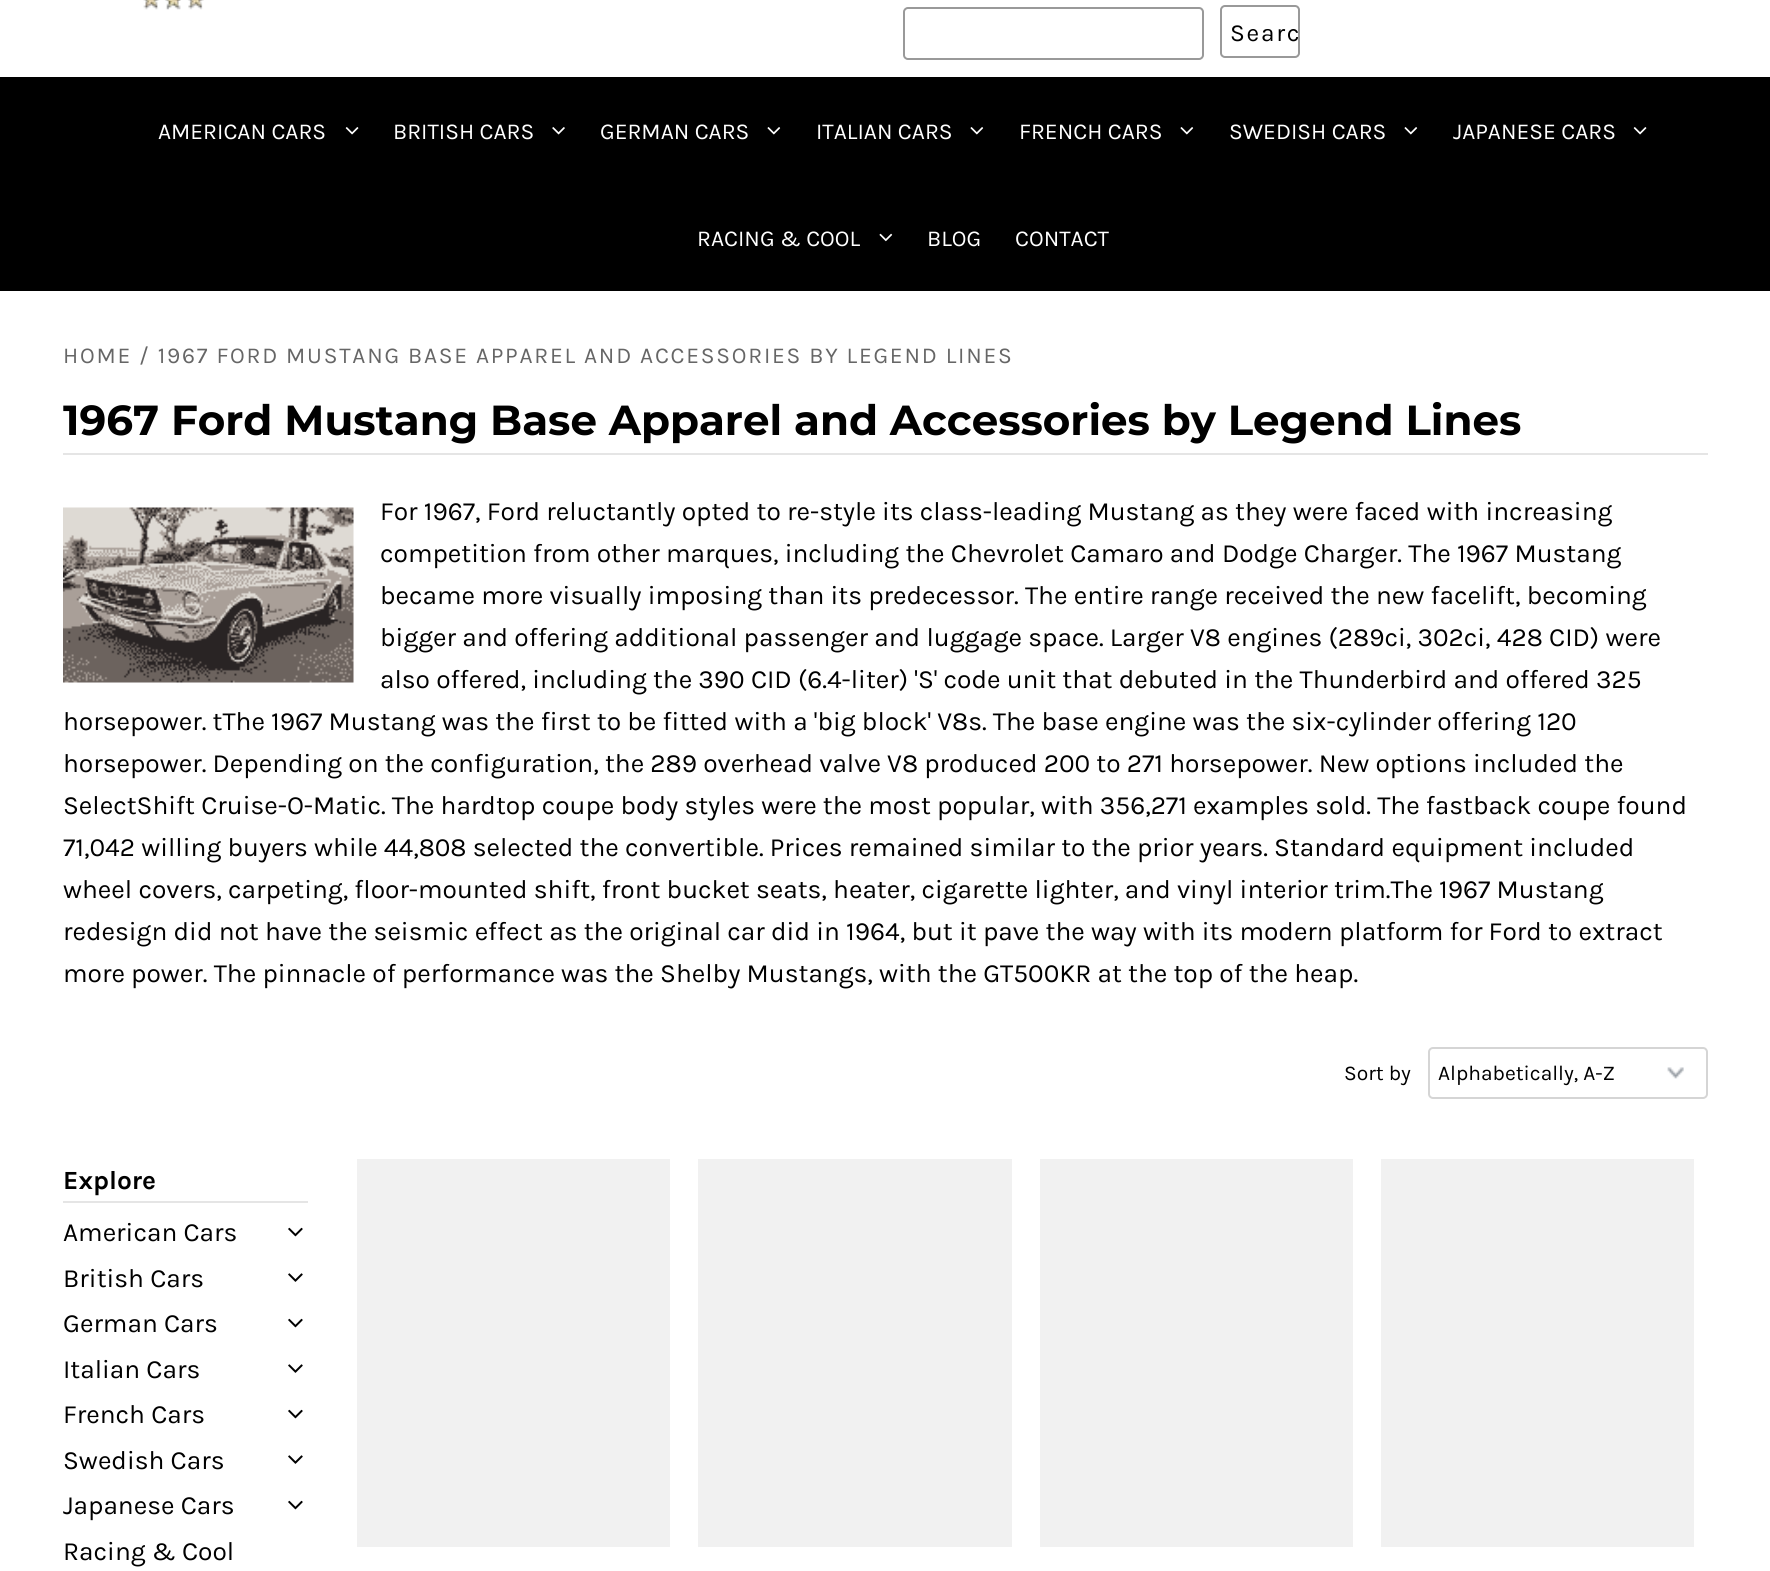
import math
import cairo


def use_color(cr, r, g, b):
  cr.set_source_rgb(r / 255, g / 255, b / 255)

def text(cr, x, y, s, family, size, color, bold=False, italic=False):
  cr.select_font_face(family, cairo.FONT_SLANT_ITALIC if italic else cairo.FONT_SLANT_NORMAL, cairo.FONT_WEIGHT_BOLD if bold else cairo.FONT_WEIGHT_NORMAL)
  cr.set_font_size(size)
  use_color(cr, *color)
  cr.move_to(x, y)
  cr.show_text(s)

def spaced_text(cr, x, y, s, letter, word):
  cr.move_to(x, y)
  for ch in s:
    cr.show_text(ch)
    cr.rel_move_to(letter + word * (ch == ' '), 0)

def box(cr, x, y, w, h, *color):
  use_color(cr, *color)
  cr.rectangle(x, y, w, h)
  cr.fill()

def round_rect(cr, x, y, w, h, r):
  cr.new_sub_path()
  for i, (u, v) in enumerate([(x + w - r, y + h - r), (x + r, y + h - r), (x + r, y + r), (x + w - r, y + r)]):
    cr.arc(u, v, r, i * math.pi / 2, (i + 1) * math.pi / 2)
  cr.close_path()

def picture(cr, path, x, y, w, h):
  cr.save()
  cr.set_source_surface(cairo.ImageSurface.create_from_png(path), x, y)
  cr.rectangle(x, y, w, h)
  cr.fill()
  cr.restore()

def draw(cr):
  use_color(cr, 255, 255, 255)
  cr.paint()
  picture(cr, "img_01.png", 143, 0, 61, 10)
  round_rect(cr, 904, 8, 299, 51, 4)
  use_color(cr, 153, 153, 153)
  cr.stroke()
  round_rect(cr, 1221, 6, 78, 51, 4)
  cr.stroke()
  box(cr, 0, 77, 1770, 214, 0, 0, 0)
  picture(cr, "img_02.png", 345, 127, 14, 8)
  picture(cr, "img_03.png", 552, 127, 13, 8)
  picture(cr, "img_04.png", 767, 127, 14, 8)
  picture(cr, "img_04.png", 970, 127, 14, 8)
  picture(cr, "img_04.png", 1180, 127, 14, 8)
  picture(cr, "img_04.png", 1404, 127, 14, 8)
  picture(cr, "img_02.png", 1633, 127, 14, 8)
  picture(cr, "img_05.png", 879, 233, 14, 9)
  box(cr, 63, 453, 1645, 2, 229, 229, 229)
  picture(cr, "img_06.png", 63, 507, 291, 176)
  picture(cr, "img_07.png", 1667, 1067, 17, 12)
  round_rect(cr, 1429, 1048, 278, 50, 4)
  use_color(cr, 213, 213, 213)
  cr.stroke()
  box(cr, 63, 1201, 245, 2, 229, 229, 229)
  picture(cr, "img_08.png", 288, 1227, 15, 10)
  picture(cr, "img_09.png", 288, 1273, 15, 9)
  picture(cr, "img_08.png", 288, 1318, 15, 10)
  picture(cr, "img_09.png", 288, 1364, 15, 9)
  picture(cr, "img_08.png", 288, 1409, 15, 10)
  picture(cr, "img_09.png", 288, 1455, 15, 9)
  picture(cr, "img_08.png", 288, 1500, 15, 10)
  box(cr, 357, 1159, 313, 388, 241, 241, 241)
  box(cr, 698, 1159, 314, 388, 241, 241, 241)
  box(cr, 1040, 1159, 313, 388, 241, 241, 241)
  box(cr, 1381, 1159, 313, 388, 241, 241, 241)
  cr.select_font_face("Karla")
  cr.set_font_size(24.5)
  use_color(cr, 0, 0, 0)
  spaced_text(cr, 1230, 41, "Searc", 1.75, 0)
  text(cr, 158, 139, "AMERICAN CARS", "Karla", 22.75, (255, 255, 255))
  text(cr, 393, 139, "BRITISH CARS", "Karla", 22.75, (255, 255, 255))
  text(cr, 600, 139, "GERMAN CARS", "Karla", 22.75, (255, 255, 255))
  text(cr, 816, 139, "ITALIAN CARS", "Karla", 22.75, (255, 255, 255))
  text(cr, 1019, 139, "FRENCH CARS", "Karla", 22.75, (255, 255, 255))
  text(cr, 1229, 139, "SWEDISH CARS", "Karla", 22.75, (255, 255, 255))
  text(cr, 1453, 139, "JAPANESE CARS", "Karla", 22.75, (255, 255, 255))
  text(cr, 697, 246, "RACING & COOL", "Karla", 22.75, (255, 255, 255))
  text(cr, 927, 246, "BLOG", "Karla", 22.75, (255, 255, 255))
  text(cr, 1015, 246, "CONTACT", "Karla", 22.75, (255, 255, 255))
  use_color(cr, 102, 102, 102)
  spaced_text(cr, 63, 363, "HOME / 1967 FORD MUSTANG BASE APPAREL AND ACCESSORIES BY LEGEND LINES", 1.75, 0)
  text(cr, 63, 435, "1967 Ford Mustang Base Apparel and Accessories by Legend Lines", "Montserrat", 42, (0, 0, 0), bold=True)
  text(cr, 380, 520, "For 1967, Ford reluctantly opted to re-style its class-leading Mustang as they were faced with increasing", "Karla", 26.25, (0, 0, 0))
  text(cr, 380, 562, "competition from other marques, including the Chevrolet Camaro and Dodge Charger. The 1967 Mustang", "Karla", 26.25, (0, 0, 0))
  text(cr, 380, 604, "became more visually imposing than its predecessor. The entire range received the new facelift, becoming", "Karla", 26.25, (0, 0, 0))
  text(cr, 380, 646, "bigger and offering additional passenger and luggage space. Larger V8 engines (289ci, 302ci, 428 CID) were", "Karla", 26.25, (0, 0, 0))
  text(cr, 380, 688, "also offered, including the 390 CID (6.4-liter) 'S' code unit that debuted in the Thunderbird and offered 325", "Karla", 26.25, (0, 0, 0))
  text(cr, 63, 730, "horsepower. tThe 1967 Mustang was the first to be fitted with a 'big block' V8s. The base engine was the six-cylinder offering 120", "Karla", 26.25, (0, 0, 0))
  text(cr, 63, 772, "horsepower. Depending on the configuration, the 289 overhead valve V8 produced 200 to 271 horsepower. New options included the", "Karla", 26.25, (0, 0, 0))
  text(cr, 63, 814, "SelectShift Cruise-O-Matic. The hardtop coupe body styles were the most popular, with 356,271 examples sold. The fastback coupe found", "Karla", 26.25, (0, 0, 0))
  text(cr, 63, 856, "71,042 willing buyers while 44,808 selected the convertible. Prices remained similar to the prior years. Standard equipment included", "Karla", 26.25, (0, 0, 0))
  text(cr, 63, 898, "wheel covers, carpeting, floor-mounted shift, front bucket seats, heater, cigarette lighter, and vinyl interior trim.The 1967 Mustang", "Karla", 26.25, (0, 0, 0))
  text(cr, 63, 940, "redesign did not have the seismic effect as the original car did in 1964, but it pave the way with its modern platform for Ford to extract", "Karla", 26.25, (0, 0, 0))
  text(cr, 63, 982, "more power. The pinnacle of performance was the Shelby Mustangs, with the GT500KR at the top of the heap.", "Karla", 26.25, (0, 0, 0))
  text(cr, 1344, 1080, "Sort by", "Karla", 21, (0, 0, 0))
  text(cr, 1438, 1080, "Alphabetically, A-Z", "Karla", 21, (0, 0, 0))
  text(cr, 63, 1189, "Explore", "Karla", 26.25, (0, 0, 0), bold=True)
  text(cr, 63, 1241, "American Cars", "Karla", 26.25, (0, 0, 0))
  text(cr, 63, 1287, "British Cars", "Karla", 26.25, (0, 0, 0))
  text(cr, 63, 1332, "German Cars", "Karla", 26.25, (0, 0, 0))
  text(cr, 63, 1378, "Italian Cars", "Karla", 26.25, (0, 0, 0))
  text(cr, 63, 1423, "French Cars", "Karla", 26.25, (0, 0, 0))
  text(cr, 63, 1469, "Swedish Cars", "Karla", 26.25, (0, 0, 0))
  text(cr, 63, 1514, "Japanese Cars", "Karla", 26.25, (0, 0, 0))
  text(cr, 63, 1560, "Racing & Cool", "Karla", 26.25, (0, 0, 0))


surface = cairo.ImageSurface(cairo.FORMAT_RGB24, 1770, 1571)
cr = cairo.Context(surface)
options = cairo.FontOptions()
options.set_hint_metrics(cairo.HINT_METRICS_OFF)
options.set_hint_style(cairo.HINT_STYLE_NONE)
cr.set_font_options(options)
cr.set_miter_limit(4)
draw(cr)
surface.write_to_png("out.png")
